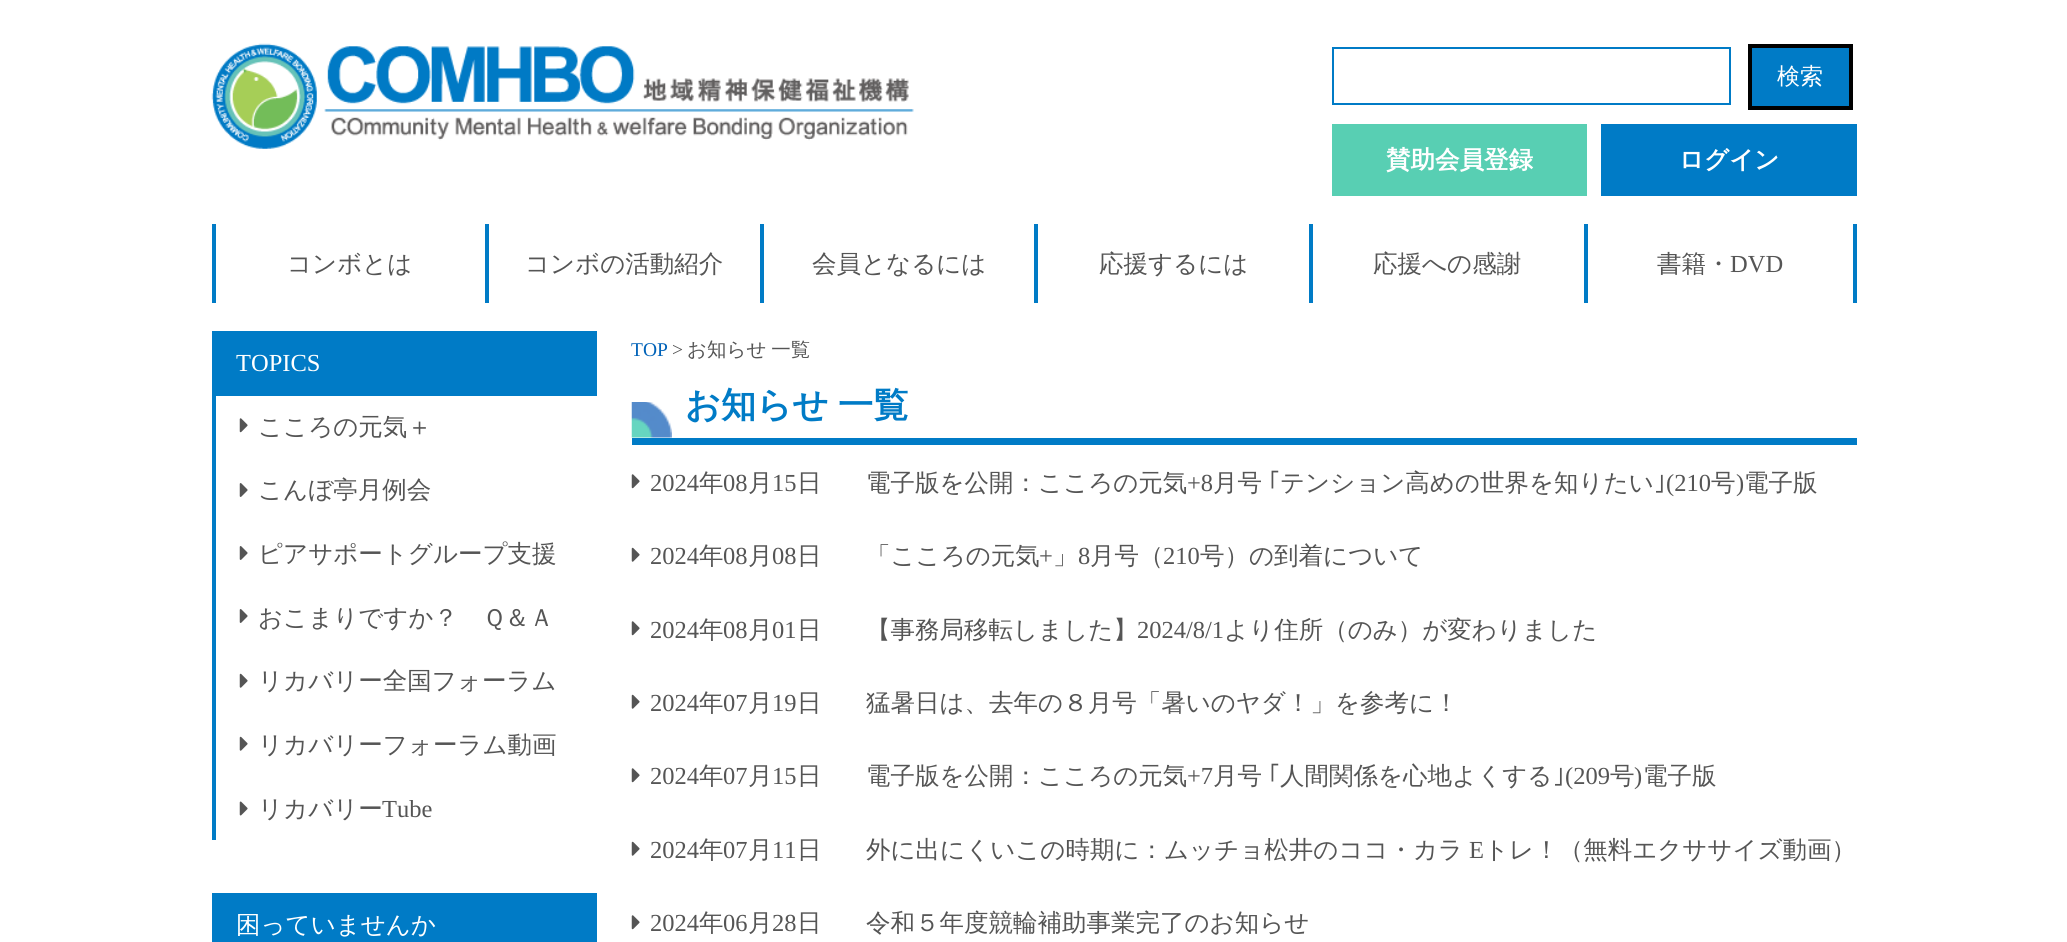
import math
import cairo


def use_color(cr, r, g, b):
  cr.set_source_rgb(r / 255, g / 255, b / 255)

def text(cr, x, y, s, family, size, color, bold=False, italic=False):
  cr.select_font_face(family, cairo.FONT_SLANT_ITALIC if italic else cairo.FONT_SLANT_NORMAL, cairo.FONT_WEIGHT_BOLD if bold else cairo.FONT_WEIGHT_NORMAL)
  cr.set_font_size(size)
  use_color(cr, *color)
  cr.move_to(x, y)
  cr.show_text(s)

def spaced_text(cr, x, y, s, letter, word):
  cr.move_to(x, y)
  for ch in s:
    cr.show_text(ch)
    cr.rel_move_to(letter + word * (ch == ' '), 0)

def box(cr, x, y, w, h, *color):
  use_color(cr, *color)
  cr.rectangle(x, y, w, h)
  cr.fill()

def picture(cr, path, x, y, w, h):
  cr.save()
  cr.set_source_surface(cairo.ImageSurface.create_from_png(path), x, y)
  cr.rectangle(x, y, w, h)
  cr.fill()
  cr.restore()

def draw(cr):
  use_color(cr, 255, 255, 255)
  cr.paint()
  picture(cr, "img_01.png", 211, 43, 703, 106)
  cr.rectangle(1333, 48, 397, 56)
  use_color(cr, 0, 123, 198)
  cr.stroke()
  cr.rectangle(1750, 46, 101, 62)
  cr.fill_preserve()
  use_color(cr, 0, 0, 0)
  cr.set_line_width(4)
  cr.stroke()
  box(cr, 1332, 124, 255, 72, 88, 207, 179)
  box(cr, 1601, 124, 256, 72, 0, 123, 198)
  box(cr, 212, 224, 4, 79, 0, 123, 198)
  box(cr, 485, 224, 4, 79, 0, 123, 198)
  box(cr, 760, 224, 4, 79, 0, 123, 198)
  box(cr, 1034, 224, 4, 79, 0, 123, 198)
  box(cr, 1309, 224, 4, 79, 0, 123, 198)
  box(cr, 1853, 224, 4, 79, 0, 123, 198)
  box(cr, 1584, 224, 4, 79, 0, 123, 198)
  box(cr, 212, 331, 385, 65, 0, 123, 198)
  box(cr, 212, 396, 4, 444, 0, 123, 198)
  picture(cr, "img_02.png", 239, 418, 9, 15)
  picture(cr, "img_03.png", 239, 483, 9, 14)
  picture(cr, "img_03.png", 239, 546, 9, 14)
  picture(cr, "img_03.png", 239, 609, 9, 14)
  picture(cr, "img_04.png", 239, 673, 9, 15)
  picture(cr, "img_04.png", 239, 736, 9, 15)
  picture(cr, "img_05.png", 239, 801, 9, 15)
  box(cr, 212, 893, 385, 49, 0, 123, 198)
  box(cr, 632, 438, 1225, 7, 0, 123, 198)
  picture(cr, "img_06.png", 631, 402, 41, 36)
  picture(cr, "img_02.png", 631, 474, 9, 15)
  picture(cr, "img_04.png", 631, 547, 9, 15)
  picture(cr, "img_02.png", 631, 621, 9, 15)
  picture(cr, "img_04.png", 631, 694, 9, 15)
  picture(cr, "img_02.png", 631, 768, 9, 15)
  picture(cr, "img_04.png", 631, 841, 9, 15)
  picture(cr, "img_02.png", 631, 915, 9, 15)
  text(cr, 1777, 84, "検索", "WenQuanYi Zen Hei Medium", 23, (255, 255, 255))
  text(cr, 1386, 168, "賛助会員登録", "WenQuanYi Zen Hei", 24.5, (255, 255, 255), bold=True)
  text(cr, 1679, 168, "ログイン", "WenQuanYi Zen Hei", 24.5, (255, 255, 255), bold=True)
  text(cr, 287, 272, "コンボとは", "WenQuanYi Zen Hei Medium", 24.5, (85, 85, 85))
  text(cr, 525, 272, "コンボの活動紹介", "WenQuanYi Zen Hei Medium", 24.5, (85, 85, 85))
  text(cr, 812, 272, "会員となるには", "WenQuanYi Zen Hei Medium", 24.5, (85, 85, 85))
  text(cr, 1099, 272, "応援するには", "WenQuanYi Zen Hei Medium", 24.5, (85, 85, 85))
  text(cr, 1373, 272, "応援への感謝", "WenQuanYi Zen Hei Medium", 24.5, (85, 85, 85))
  text(cr, 1657, 272, "書籍・", "WenQuanYi Zen Hei Medium", 24.5, (85, 85, 85))
  text(cr, 1730, 272, "DVD", "Liberation Serif", 24.5, (85, 85, 85))
  text(cr, 236, 371, "TOPICS", "Liberation Serif", 24.5, (255, 255, 255))
  text(cr, 258, 435, "こころの元気＋", "WenQuanYi Zen Hei Medium", 24.5, (85, 85, 85))
  text(cr, 258, 498, "こんぼ亭月例会", "WenQuanYi Zen Hei Medium", 24.5, (85, 85, 85))
  text(cr, 258, 562, "ピアサポートグループ支援", "WenQuanYi Zen Hei Medium", 24.5, (85, 85, 85))
  text(cr, 258, 626, "おこまりですか？　Ｑ＆Ａ", "WenQuanYi Zen Hei Medium", 24.5, (85, 85, 85))
  text(cr, 258, 689, "リカバリー全国フォーラム", "WenQuanYi Zen Hei Medium", 24.5, (85, 85, 85))
  text(cr, 258, 753, "リカバリーフォーラム動画", "WenQuanYi Zen Hei Medium", 24.5, (85, 85, 85))
  text(cr, 258, 817, "リカバリー", "WenQuanYi Zen Hei Medium", 24.5, (85, 85, 85))
  text(cr, 382, 817, "Tube", "Liberation Serif", 24.5, (85, 85, 85))
  text(cr, 236, 933, "困っていませんか", "WenQuanYi Zen Hei Medium", 24.5, (255, 255, 255))
  text(cr, 631, 356, "TOP", "Liberation Serif", 19.5, (0, 98, 184))
  text(cr, 672, 356, ">", "Liberation Serif", 19.5, (85, 85, 85))
  cr.select_font_face("WenQuanYi Zen Hei Medium")
  spaced_text(cr, 687, 356, "お知らせ 一覧", 0, -1)
  cr.select_font_face("WenQuanYi Zen Hei", cairo.FONT_SLANT_NORMAL, cairo.FONT_WEIGHT_BOLD)
  cr.set_font_size(35.25)
  use_color(cr, 0, 123, 198)
  spaced_text(cr, 685, 417, "お知らせ 一覧", 0, -1)
  text(cr, 650, 491, "2024", "Liberation Serif", 24.5, (85, 85, 85))
  text(cr, 699, 491, "年", "WenQuanYi Zen Hei Medium", 24.5, (85, 85, 85))
  text(cr, 723, 491, "08", "Liberation Serif", 24.5, (85, 85, 85))
  text(cr, 748, 491, "月", "WenQuanYi Zen Hei Medium", 24.5, (85, 85, 85))
  text(cr, 772, 491, "15", "Liberation Serif", 24.5, (85, 85, 85))
  text(cr, 797, 491, "日", "WenQuanYi Zen Hei Medium", 24.5, (85, 85, 85))
  text(cr, 866, 491, "電子版を公開：こころの元気", "WenQuanYi Zen Hei Medium", 24.5, (85, 85, 85))
  text(cr, 1187, 491, "+8", "Liberation Serif", 24.5, (85, 85, 85))
  text(cr, 1213, 491, "月号", "WenQuanYi Zen Hei Medium", 24.5, (85, 85, 85))
  text(cr, 1268, 491, "｢", "IPAPGothic", 24.5, (85, 85, 85))
  text(cr, 1280, 491, "テンション高めの世界を知りたい", "WenQuanYi Zen Hei Medium", 24.5, (85, 85, 85))
  text(cr, 1654, 491, "｣", "IPAPGothic", 24.5, (85, 85, 85))
  text(cr, 1666, 491, "(210", "Liberation Serif", 24.5, (85, 85, 85))
  text(cr, 1711, 491, "号", "WenQuanYi Zen Hei Medium", 24.5, (85, 85, 85))
  text(cr, 1736, 491, ")", "Liberation Serif", 24.5, (85, 85, 85))
  text(cr, 1744, 491, "電子版", "WenQuanYi Zen Hei Medium", 24.5, (85, 85, 85))
  text(cr, 650, 564, "2024", "Liberation Serif", 24.5, (85, 85, 85))
  text(cr, 699, 564, "年", "WenQuanYi Zen Hei Medium", 24.5, (85, 85, 85))
  text(cr, 723, 564, "08", "Liberation Serif", 24.5, (85, 85, 85))
  text(cr, 748, 564, "月", "WenQuanYi Zen Hei Medium", 24.5, (85, 85, 85))
  text(cr, 772, 564, "08", "Liberation Serif", 24.5, (85, 85, 85))
  text(cr, 797, 564, "日", "WenQuanYi Zen Hei Medium", 24.5, (85, 85, 85))
  text(cr, 866, 564, "「こころの元気", "WenQuanYi Zen Hei Medium", 24.5, (85, 85, 85))
  text(cr, 1039, 564, "+", "Liberation Serif", 24.5, (85, 85, 85))
  text(cr, 1053, 564, "」", "WenQuanYi Zen Hei Medium", 24.5, (85, 85, 85))
  text(cr, 1078, 564, "8", "Liberation Serif", 24.5, (85, 85, 85))
  text(cr, 1090, 564, "月号（", "WenQuanYi Zen Hei Medium", 24.5, (85, 85, 85))
  text(cr, 1163, 564, "210", "Liberation Serif", 24.5, (85, 85, 85))
  text(cr, 1200, 564, "号）の到着について", "WenQuanYi Zen Hei Medium", 24.5, (85, 85, 85))
  text(cr, 650, 638, "2024", "Liberation Serif", 24.5, (85, 85, 85))
  text(cr, 699, 638, "年", "WenQuanYi Zen Hei Medium", 24.5, (85, 85, 85))
  text(cr, 723, 638, "08", "Liberation Serif", 24.5, (85, 85, 85))
  text(cr, 748, 638, "月", "WenQuanYi Zen Hei Medium", 24.5, (85, 85, 85))
  text(cr, 772, 638, "01", "Liberation Serif", 24.5, (85, 85, 85))
  text(cr, 797, 638, "日", "WenQuanYi Zen Hei Medium", 24.5, (85, 85, 85))
  text(cr, 866, 638, "【事務局移転しました】", "WenQuanYi Zen Hei Medium", 24.5, (85, 85, 85))
  text(cr, 1137, 638, "2024/8/1", "Liberation Serif", 24.5, (85, 85, 85))
  text(cr, 1224, 638, "より住所（のみ）が変わりました", "WenQuanYi Zen Hei Medium", 24.5, (85, 85, 85))
  text(cr, 650, 711, "2024", "Liberation Serif", 24.5, (85, 85, 85))
  text(cr, 699, 711, "年", "WenQuanYi Zen Hei Medium", 24.5, (85, 85, 85))
  text(cr, 723, 711, "07", "Liberation Serif", 24.5, (85, 85, 85))
  text(cr, 748, 711, "月", "WenQuanYi Zen Hei Medium", 24.5, (85, 85, 85))
  text(cr, 772, 711, "19", "Liberation Serif", 24.5, (85, 85, 85))
  text(cr, 797, 711, "日", "WenQuanYi Zen Hei Medium", 24.5, (85, 85, 85))
  text(cr, 866, 711, "猛暑日は、去年の８月号「暑いのヤダ！」を参考に！", "WenQuanYi Zen Hei Medium", 24.5, (85, 85, 85))
  text(cr, 650, 784, "2024", "Liberation Serif", 24.5, (85, 85, 85))
  text(cr, 699, 784, "年", "WenQuanYi Zen Hei Medium", 24.5, (85, 85, 85))
  text(cr, 723, 784, "07", "Liberation Serif", 24.5, (85, 85, 85))
  text(cr, 748, 784, "月", "WenQuanYi Zen Hei Medium", 24.5, (85, 85, 85))
  text(cr, 772, 784, "15", "Liberation Serif", 24.5, (85, 85, 85))
  text(cr, 797, 784, "日", "WenQuanYi Zen Hei Medium", 24.5, (85, 85, 85))
  text(cr, 866, 784, "電子版を公開：こころの元気", "WenQuanYi Zen Hei Medium", 24.5, (85, 85, 85))
  text(cr, 1187, 784, "+7", "Liberation Serif", 24.5, (85, 85, 85))
  text(cr, 1213, 784, "月号", "WenQuanYi Zen Hei Medium", 24.5, (85, 85, 85))
  text(cr, 1268, 784, "｢", "IPAPGothic", 24.5, (85, 85, 85))
  text(cr, 1280, 784, "人間関係を心地よくする", "WenQuanYi Zen Hei Medium", 24.5, (85, 85, 85))
  text(cr, 1553, 784, "｣", "IPAPGothic", 24.5, (85, 85, 85))
  text(cr, 1565, 784, "(209", "Liberation Serif", 24.5, (85, 85, 85))
  text(cr, 1610, 784, "号", "WenQuanYi Zen Hei Medium", 24.5, (85, 85, 85))
  text(cr, 1634, 784, ")", "Liberation Serif", 24.5, (85, 85, 85))
  text(cr, 1643, 784, "電子版", "WenQuanYi Zen Hei Medium", 24.5, (85, 85, 85))
  text(cr, 650, 858, "2024", "Liberation Serif", 24.5, (85, 85, 85))
  text(cr, 699, 858, "年", "WenQuanYi Zen Hei Medium", 24.5, (85, 85, 85))
  text(cr, 723, 858, "07", "Liberation Serif", 24.5, (85, 85, 85))
  text(cr, 748, 858, "月", "WenQuanYi Zen Hei Medium", 24.5, (85, 85, 85))
  text(cr, 772, 858, "11", "Liberation Serif", 24.5, (85, 85, 85))
  text(cr, 797, 858, "日", "WenQuanYi Zen Hei Medium", 24.5, (85, 85, 85))
  text(cr, 866, 858, "外に出にくいこの時期に：ムッチョ松井のココ・カラ", "WenQuanYi Zen Hei Medium", 24.5, (85, 85, 85))
  text(cr, 1469, 858, "E", "Liberation Serif", 24.5, (85, 85, 85))
  text(cr, 1484, 858, "トレ！（無料エクササイズ動画）", "WenQuanYi Zen Hei Medium", 24.5, (85, 85, 85))
  text(cr, 650, 931, "2024", "Liberation Serif", 24.5, (85, 85, 85))
  text(cr, 699, 931, "年", "WenQuanYi Zen Hei Medium", 24.5, (85, 85, 85))
  text(cr, 723, 931, "06", "Liberation Serif", 24.5, (85, 85, 85))
  text(cr, 748, 931, "月", "WenQuanYi Zen Hei Medium", 24.5, (85, 85, 85))
  text(cr, 772, 931, "28", "Liberation Serif", 24.5, (85, 85, 85))
  text(cr, 797, 931, "日", "WenQuanYi Zen Hei Medium", 24.5, (85, 85, 85))
  text(cr, 866, 931, "令和５年度競輪補助事業完了のお知らせ", "WenQuanYi Zen Hei Medium", 24.5, (85, 85, 85))


surface = cairo.ImageSurface(cairo.FORMAT_RGB24, 2067, 942)
cr = cairo.Context(surface)
options = cairo.FontOptions()
options.set_hint_metrics(cairo.HINT_METRICS_OFF)
options.set_hint_style(cairo.HINT_STYLE_NONE)
cr.set_font_options(options)
cr.set_miter_limit(4)
draw(cr)
surface.write_to_png("out.png")
